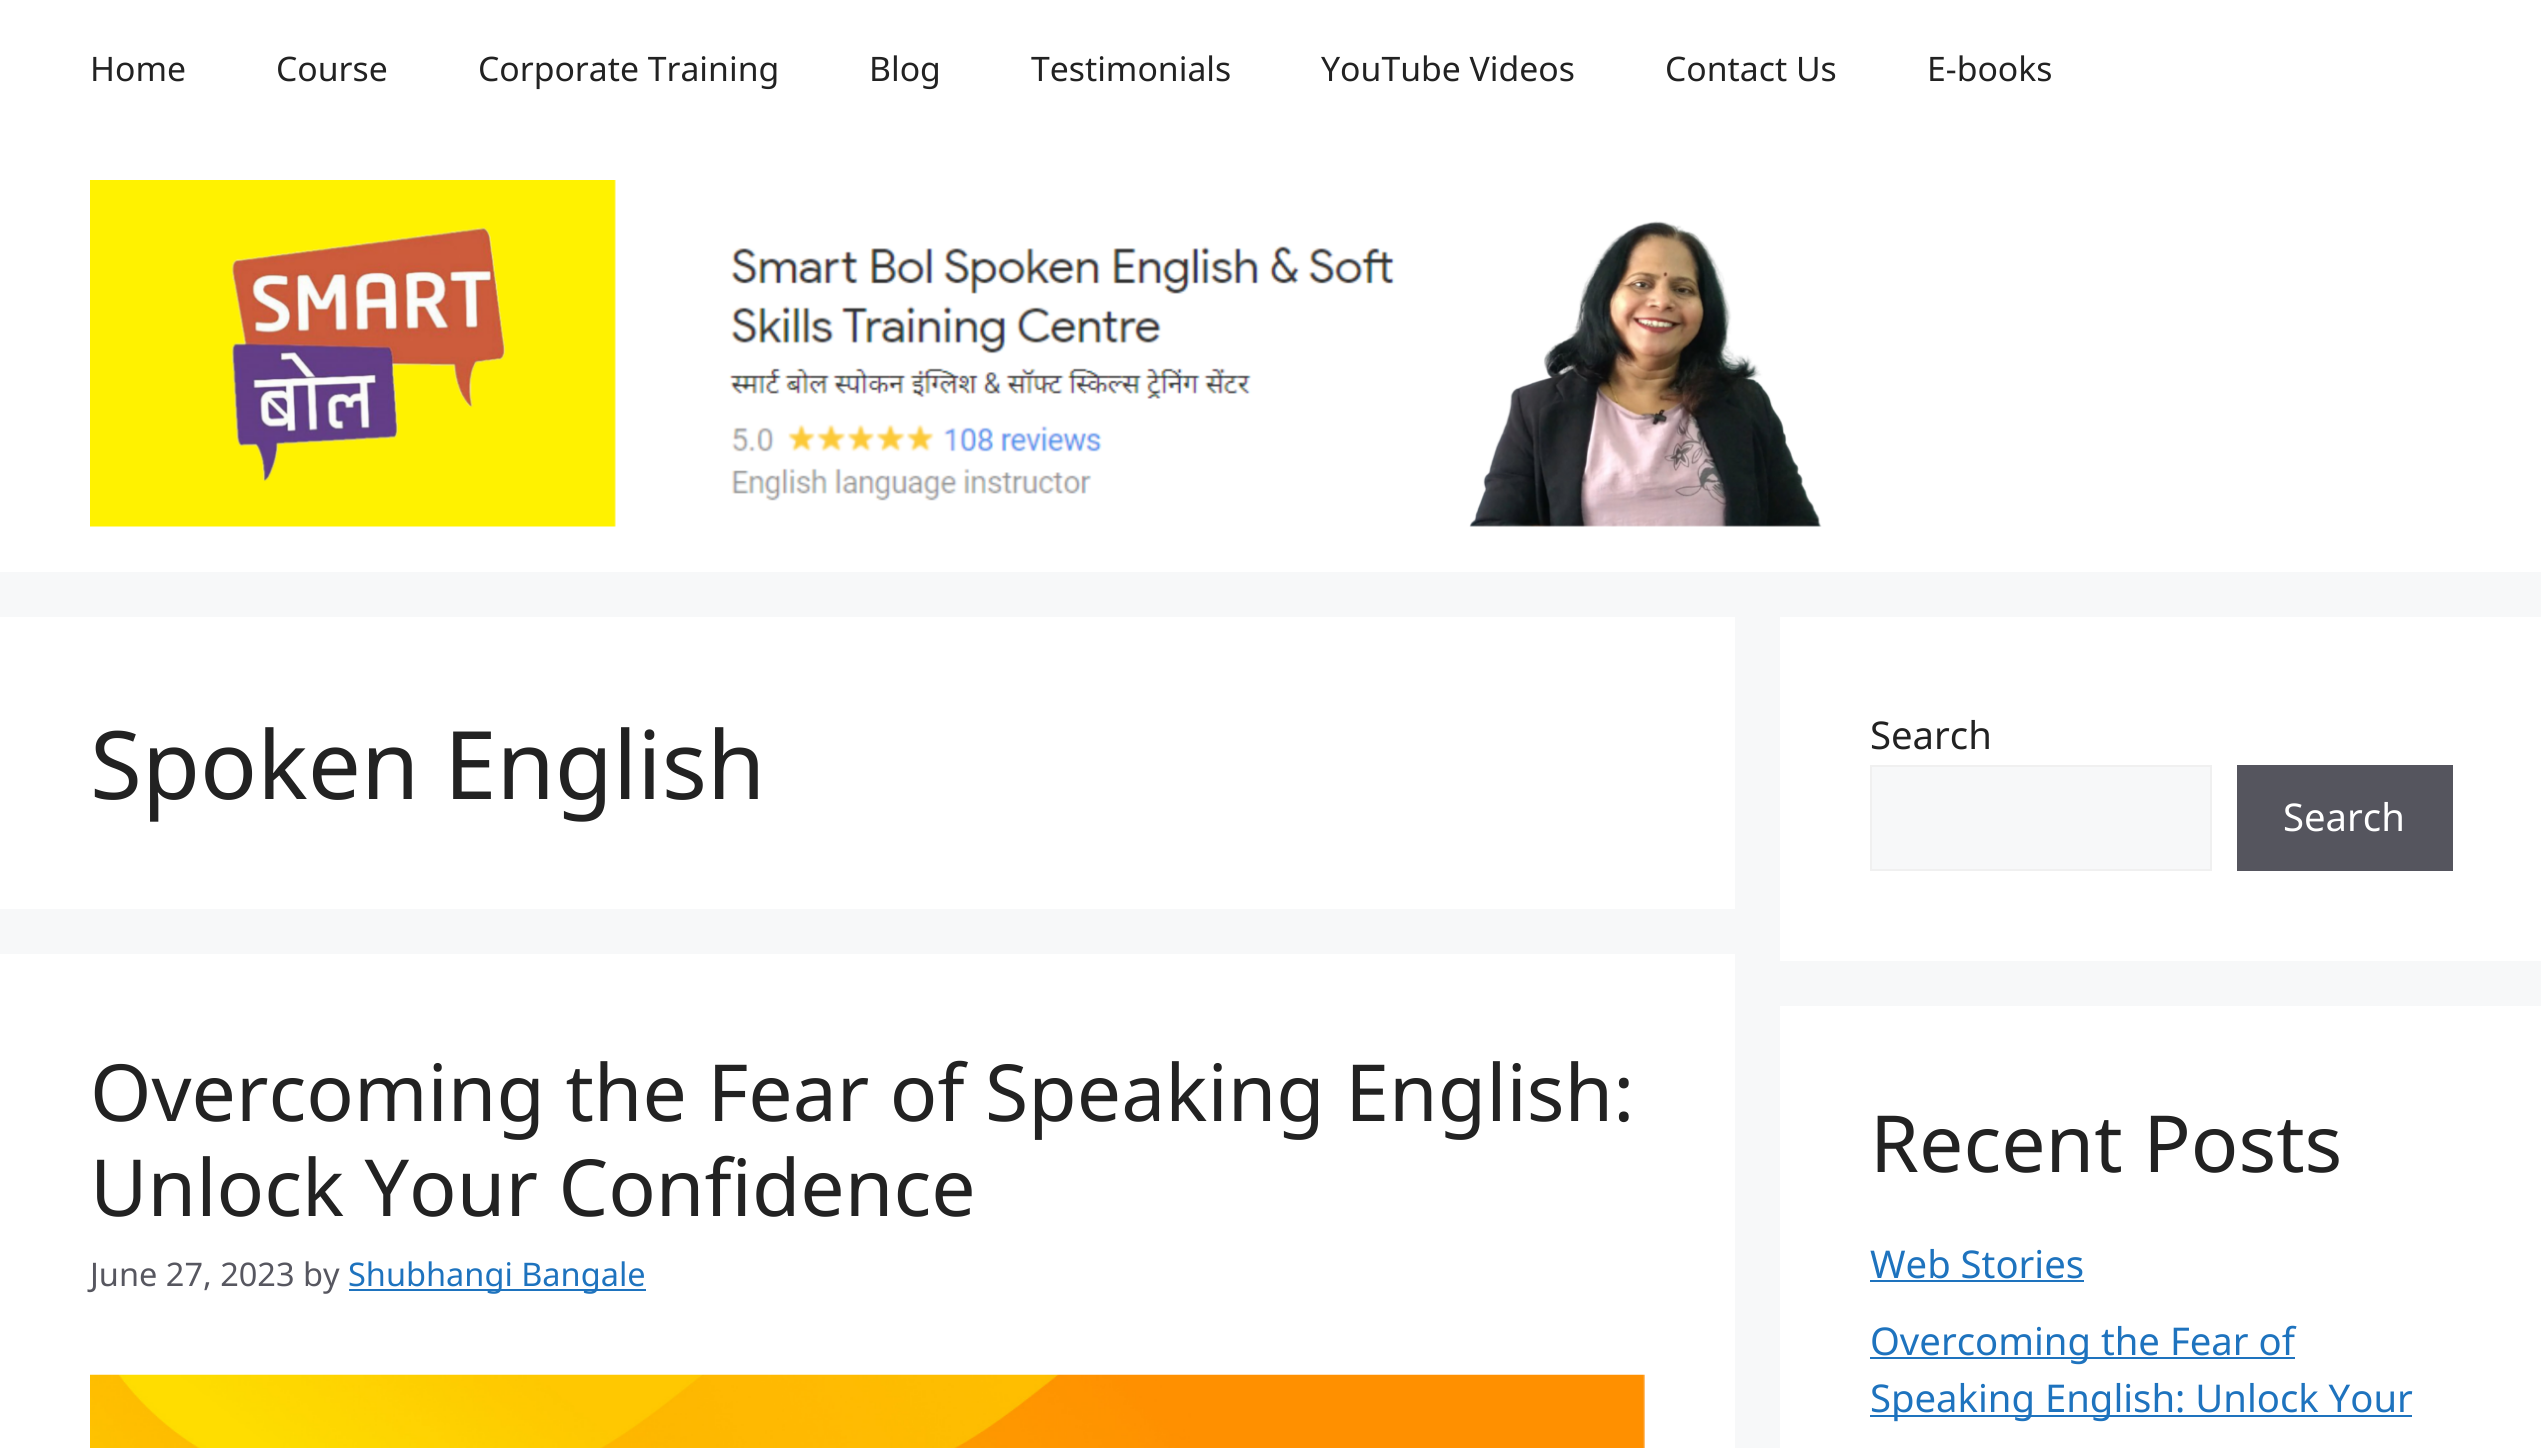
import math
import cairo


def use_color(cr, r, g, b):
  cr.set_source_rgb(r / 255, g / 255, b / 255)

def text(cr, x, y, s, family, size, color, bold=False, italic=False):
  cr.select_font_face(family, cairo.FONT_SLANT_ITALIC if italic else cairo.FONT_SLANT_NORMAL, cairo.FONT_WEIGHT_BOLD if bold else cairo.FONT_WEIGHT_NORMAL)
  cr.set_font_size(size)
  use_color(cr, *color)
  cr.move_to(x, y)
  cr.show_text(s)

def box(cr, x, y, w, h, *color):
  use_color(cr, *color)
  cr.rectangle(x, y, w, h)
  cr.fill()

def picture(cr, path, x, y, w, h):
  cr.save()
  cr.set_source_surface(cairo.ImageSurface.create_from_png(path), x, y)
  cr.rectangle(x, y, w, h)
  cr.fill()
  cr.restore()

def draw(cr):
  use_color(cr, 247, 248, 249)
  cr.paint()
  box(cr, 0, 0, 2541, 572, 255, 255, 255)
  picture(cr, "img_01.png", 90, 180, 1732, 347)
  box(cr, 0, 617, 1735, 292, 255, 255, 255)
  box(cr, 0, 954, 1735, 494, 255, 255, 255)
  box(cr, 349, 1289, 297, 2, 30, 115, 190)
  picture(cr, "img_02.png", 90, 1374, 1555, 74)
  box(cr, 1780, 617, 761, 344, 255, 255, 255)
  use_color(cr, 247, 248, 249)
  cr.rectangle(1871, 766, 340, 104)
  cr.fill_preserve()
  use_color(cr, 240, 240, 240)
  cr.stroke()
  box(cr, 2237, 765, 216, 106, 85, 85, 94)
  box(cr, 1780, 1006, 761, 442, 255, 255, 255)
  box(cr, 1870, 1280, 214, 2, 30, 115, 190)
  box(cr, 1870, 1357, 425, 2, 30, 115, 190)
  box(cr, 1870, 1415, 542, 2, 30, 115, 190)
  text(cr, 90, 81, "Home", "Noto Sans", 33.75, (34, 34, 34))
  text(cr, 276, 81, "Course", "Noto Sans", 33.75, (34, 34, 34))
  text(cr, 478, 81, "Corporate Training", "Noto Sans", 33.75, (34, 34, 34))
  text(cr, 869, 81, "Blog", "Noto Sans", 33.75, (34, 34, 34))
  text(cr, 1031, 81, "Testimonials", "Noto Sans", 33.75, (34, 34, 34))
  text(cr, 1321, 81, "YouTube Videos", "Noto Sans", 33.75, (34, 34, 34))
  text(cr, 1665, 81, "Contact Us", "Noto Sans", 33.75, (34, 34, 34))
  text(cr, 1927, 81, "E-books", "Noto Sans", 33.75, (34, 34, 34))
  text(cr, 90, 799, "Spoken English", "Noto Sans", 94.5, (34, 34, 34))
  text(cr, 90, 1121, "Overcoming the Fear of Speaking English:", "Noto Sans", 78.75, (34, 34, 34))
  text(cr, 90, 1216, "Unlock Your Confidence", "Noto Sans", 78.75, (34, 34, 34))
  text(cr, 90, 1286, "June 27, 2023 by", "Noto Sans", 32.5, (87, 87, 96))
  text(cr, 348, 1286, "Shubhangi Bangale", "Noto Sans", 32.5, (30, 115, 190))
  text(cr, 1870, 749, "Search", "Noto Sans", 38.25, (34, 34, 34))
  text(cr, 2283, 831, "Search", "Noto Sans", 38.25, (255, 255, 255))
  text(cr, 1870, 1172, "Recent Posts", "Noto Sans", 78.75, (34, 34, 34))
  text(cr, 1870, 1278, "Web Stories", "Noto Sans", 38.25, (30, 115, 190))
  text(cr, 1870, 1355, "Overcoming the Fear of", "Noto Sans", 38.25, (30, 115, 190))
  text(cr, 1870, 1412, "Speaking English: Unlock Your", "Noto Sans", 38.25, (30, 115, 190))


surface = cairo.ImageSurface(cairo.FORMAT_RGB24, 2541, 1448)
cr = cairo.Context(surface)
options = cairo.FontOptions()
options.set_hint_metrics(cairo.HINT_METRICS_OFF)
options.set_hint_style(cairo.HINT_STYLE_NONE)
cr.set_font_options(options)
cr.set_miter_limit(4)
draw(cr)
surface.write_to_png("out.png")
